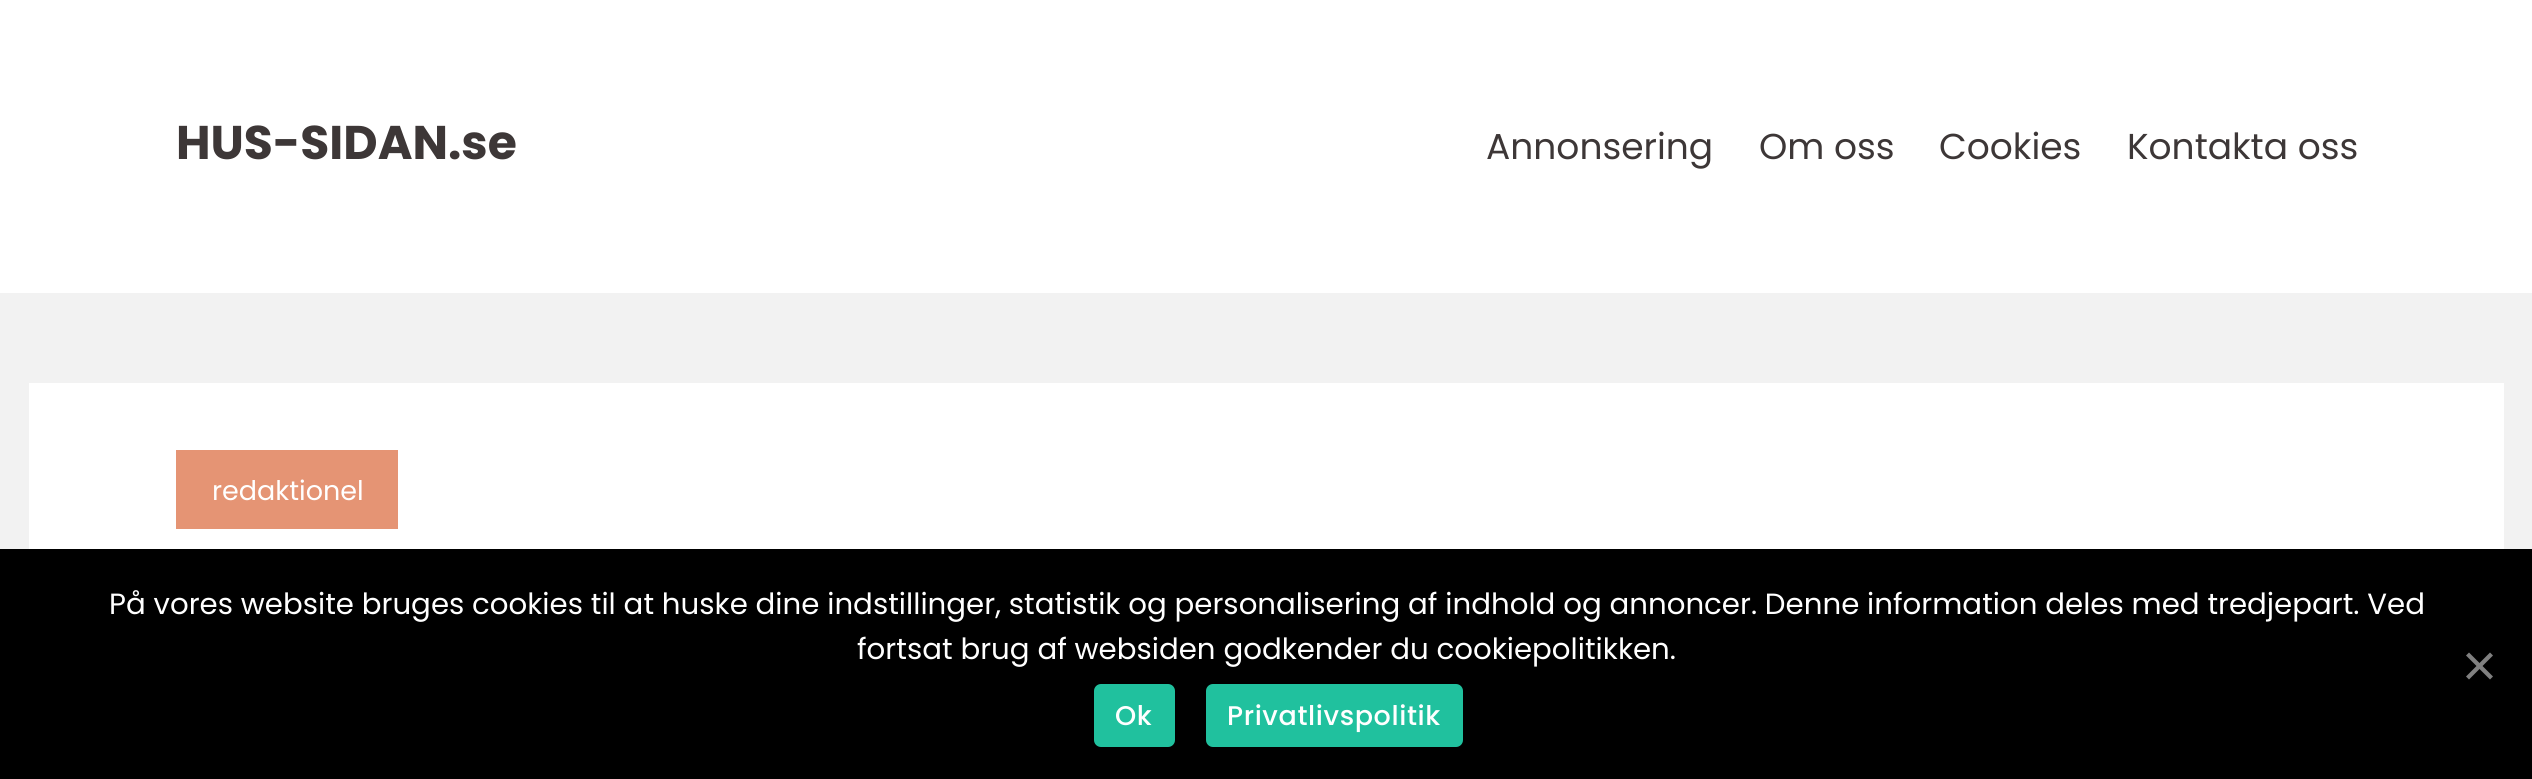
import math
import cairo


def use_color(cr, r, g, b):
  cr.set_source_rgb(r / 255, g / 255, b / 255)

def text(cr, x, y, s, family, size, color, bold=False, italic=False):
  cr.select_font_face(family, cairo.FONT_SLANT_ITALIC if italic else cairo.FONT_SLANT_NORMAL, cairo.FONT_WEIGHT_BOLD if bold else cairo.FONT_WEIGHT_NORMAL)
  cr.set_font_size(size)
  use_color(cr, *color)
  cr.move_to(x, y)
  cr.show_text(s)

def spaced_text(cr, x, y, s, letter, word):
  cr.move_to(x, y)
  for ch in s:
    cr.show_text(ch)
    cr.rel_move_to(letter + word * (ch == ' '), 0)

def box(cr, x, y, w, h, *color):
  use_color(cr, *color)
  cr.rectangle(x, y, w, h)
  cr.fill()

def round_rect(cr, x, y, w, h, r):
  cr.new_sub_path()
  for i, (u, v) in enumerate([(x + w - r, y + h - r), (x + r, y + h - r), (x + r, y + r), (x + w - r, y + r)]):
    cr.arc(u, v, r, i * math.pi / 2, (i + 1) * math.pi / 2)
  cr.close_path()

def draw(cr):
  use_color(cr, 242, 242, 242)
  cr.paint()
  box(cr, 0, 0, 2532, 293, 255, 255, 255)
  box(cr, 29, 383, 2475, 166, 255, 255, 255)
  box(cr, 176, 450, 222, 79, 229, 148, 116)
  box(cr, 0, 549, 2532, 230, 0, 0, 0)
  use_color(cr, 128, 128, 128)
  cr.new_path()
  cr.move_to(2490, 652.5)
  cr.line_to(2493, 655.5)
  cr.line_to(2469, 679.5)
  cr.line_to(2466, 676.5)
  cr.close_path()
  cr.fill()
  cr.new_path()
  cr.move_to(2466, 655.5)
  cr.line_to(2469, 652.5)
  cr.line_to(2493, 676.5)
  cr.line_to(2490, 679.5)
  cr.close_path()
  cr.fill()
  use_color(cr, 32, 193, 158)
  round_rect(cr, 1094, 684, 81, 63, 7)
  cr.fill()
  round_rect(cr, 1206, 684, 257, 63, 7)
  cr.fill()
  text(cr, 176, 159, "HUS-SIDAN.se", "Poppins", 47.25, (61, 55, 55), bold=True)
  text(cr, 1486, 159, "Annonsering", "Poppins", 36, (61, 55, 55))
  text(cr, 1759, 159, "Om oss", "Poppins", 36, (61, 55, 55))
  text(cr, 1939, 159, "Cookies", "Poppins", 36, (61, 55, 55))
  text(cr, 2127, 159, "Kontakta oss", "Poppins", 36, (61, 55, 55))
  text(cr, 212, 500, "redaktionel", "Poppins", 27, (255, 255, 255))
  text(cr, 109, 614, "På vores website bruges cookies til at huske dine indstillinger, statistik og personalisering af indhold og annoncer. Denne information deles med tredjepart. Ved", "Poppins", 29.25, (255, 255, 255))
  text(cr, 857, 659, "fortsat brug af websiden godkender du cookiepolitikken.", "Poppins", 29.25, (255, 255, 255))
  cr.select_font_face("Poppins Medium")
  cr.set_font_size(27)
  spaced_text(cr, 1115, 725, "Ok", 0.6, 0)
  spaced_text(cr, 1227, 725, "Privatlivspolitik", 0.6, 0)


surface = cairo.ImageSurface(cairo.FORMAT_RGB24, 2532, 779)
cr = cairo.Context(surface)
options = cairo.FontOptions()
options.set_hint_metrics(cairo.HINT_METRICS_OFF)
options.set_hint_style(cairo.HINT_STYLE_NONE)
cr.set_font_options(options)
cr.set_miter_limit(4)
draw(cr)
surface.write_to_png("out.png")
